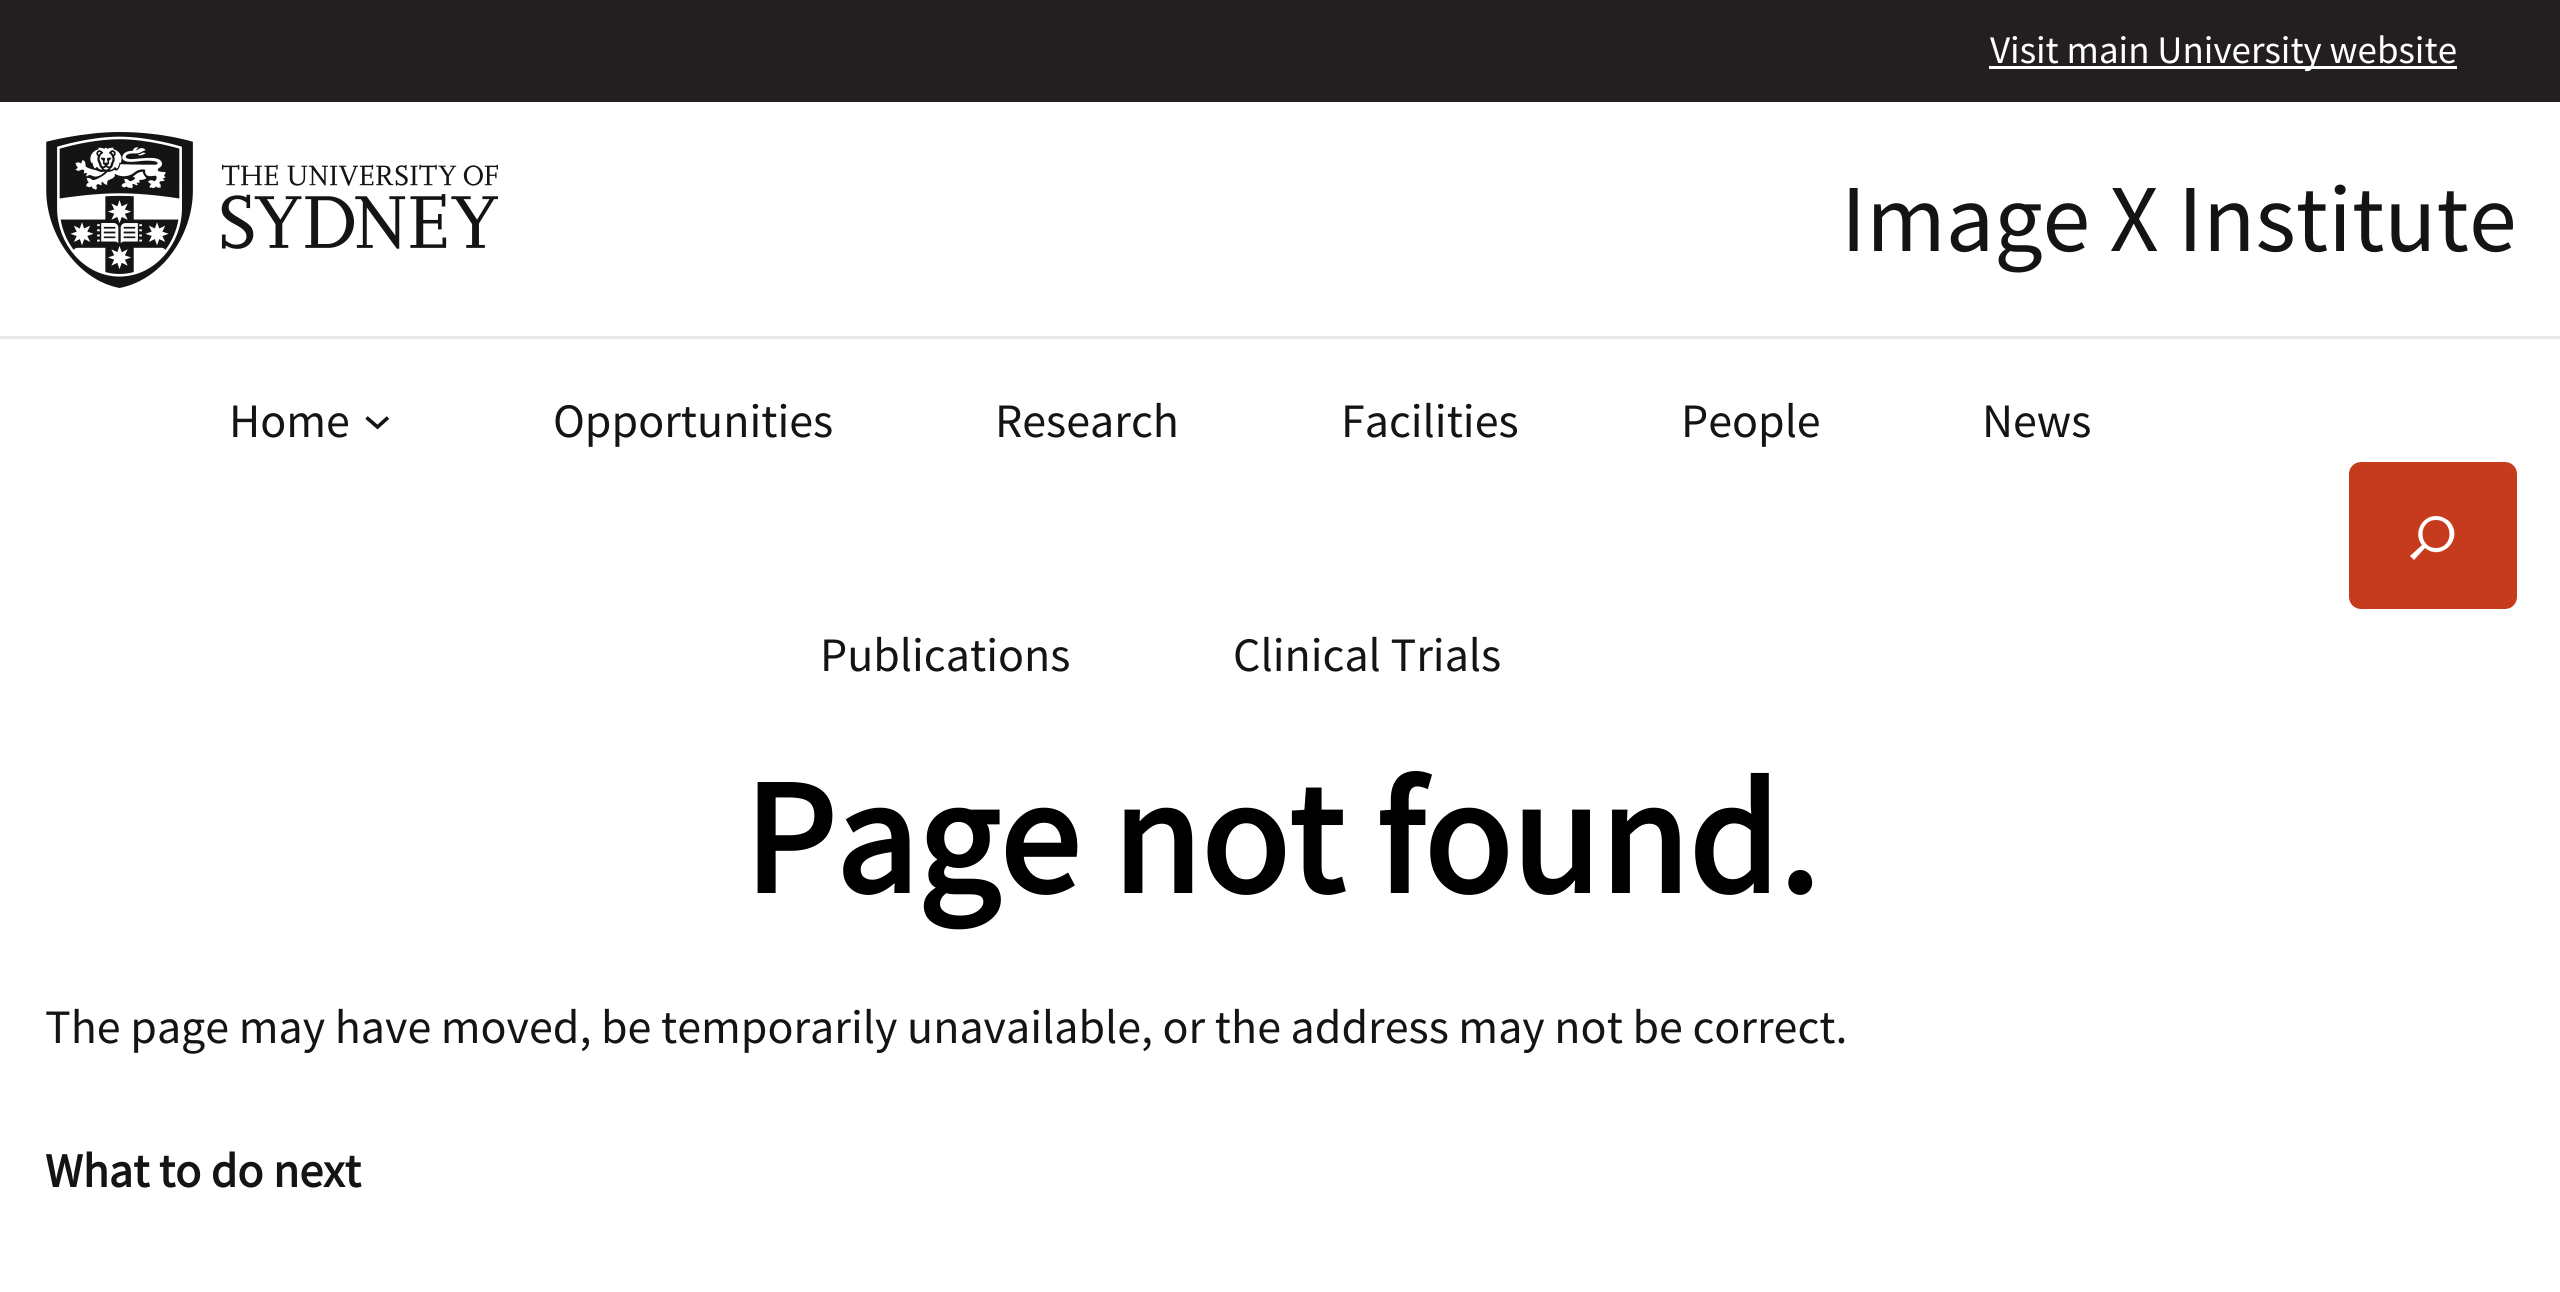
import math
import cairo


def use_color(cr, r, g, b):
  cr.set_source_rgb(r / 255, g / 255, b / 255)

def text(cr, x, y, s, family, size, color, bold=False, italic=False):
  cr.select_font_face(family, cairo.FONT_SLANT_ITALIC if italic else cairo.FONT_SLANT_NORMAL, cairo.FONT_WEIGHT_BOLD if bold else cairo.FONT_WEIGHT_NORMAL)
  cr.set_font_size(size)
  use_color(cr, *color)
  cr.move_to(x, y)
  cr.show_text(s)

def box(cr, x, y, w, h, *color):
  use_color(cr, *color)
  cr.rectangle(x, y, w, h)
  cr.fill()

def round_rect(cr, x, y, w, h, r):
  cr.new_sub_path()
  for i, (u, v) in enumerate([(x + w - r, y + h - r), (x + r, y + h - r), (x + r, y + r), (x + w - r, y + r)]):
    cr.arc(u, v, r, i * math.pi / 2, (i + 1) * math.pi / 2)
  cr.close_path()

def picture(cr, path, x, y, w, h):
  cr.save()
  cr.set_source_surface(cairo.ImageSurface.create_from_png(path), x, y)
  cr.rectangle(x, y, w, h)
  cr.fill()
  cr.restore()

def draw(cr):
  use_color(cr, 255, 255, 255)
  cr.paint()
  box(cr, 0, 0, 2560, 102, 35, 31, 32)
  box(cr, 1989, 66, 468, 3, 255, 255, 255)
  box(cr, 0, 336, 2560, 3, 231, 231, 232)
  picture(cr, "img_01.png", 46, 132, 452, 156)
  cr.new_path()
  cr.move_to(366.5, 417.5)
  cr.line_to(377.5, 427)
  cr.line_to(388, 417.5)
  use_color(cr, 20, 20, 20)
  cr.set_line_width(3.6)
  cr.stroke()
  use_color(cr, 198, 58, 30)
  round_rect(cr, 2349, 462, 168, 147, 12)
  cr.fill()
  use_color(cr, 255, 255, 255)
  cr.new_path()
  cr.move_to(2436, 516)
  cr.curve_to(2421, 516, 2413, 534, 2422, 545)
  cr.line_to(2410, 556)
  cr.line_to(2414, 560)
  cr.line_to(2425, 548)
  cr.curve_to(2442, 562, 2465, 538, 2449, 521)
  cr.curve_to(2445, 518, 2441, 516, 2436, 516)
  cr.close_path()
  cr.move_to(2436, 548)
  cr.curve_to(2418, 548, 2418, 520, 2436, 520)
  cr.curve_to(2454, 520, 2454, 548, 2436, 548)
  cr.close_path()
  cr.fill()
  text(cr, 1990, 63, "Visit main University website", "Source Sans Pro", 39, (255, 255, 255))
  text(cr, 1841, 251, "Image X Institute", "Source Sans Pro", 96, (20, 20, 20))
  text(cr, 229, 437, "Home", "Source Sans Pro", 48, (20, 20, 20))
  text(cr, 553, 437, "Opportunities", "Source Sans Pro", 48, (20, 20, 20))
  text(cr, 995, 437, "Research", "Source Sans Pro", 48, (20, 20, 20))
  text(cr, 1341, 437, "Facilities", "Source Sans Pro", 48, (20, 20, 20))
  text(cr, 1681, 437, "People", "Source Sans Pro", 48, (20, 20, 20))
  text(cr, 1982, 437, "News", "Source Sans Pro", 48, (20, 20, 20))
  text(cr, 820, 671, "Publications", "Source Sans Pro", 48, (20, 20, 20))
  text(cr, 1233, 671, "Clinical Trials", "Source Sans Pro", 48, (20, 20, 20))
  text(cr, 743, 893, "Page not found.", "Source Sans Pro", 162.25, (0, 0, 0), bold=True)
  text(cr, 45, 1043, "The page may have moved, be temporarily unavailable, or the address may not be correct.", "Source Sans Pro", 48, (20, 20, 20))
  text(cr, 45, 1187, "What to do next", "Source Sans Pro", 48, (20, 20, 20), bold=True)


surface = cairo.ImageSurface(cairo.FORMAT_RGB24, 2560, 1292)
cr = cairo.Context(surface)
options = cairo.FontOptions()
options.set_hint_metrics(cairo.HINT_METRICS_OFF)
options.set_hint_style(cairo.HINT_STYLE_NONE)
cr.set_font_options(options)
cr.set_miter_limit(4)
draw(cr)
surface.write_to_png("out.png")
